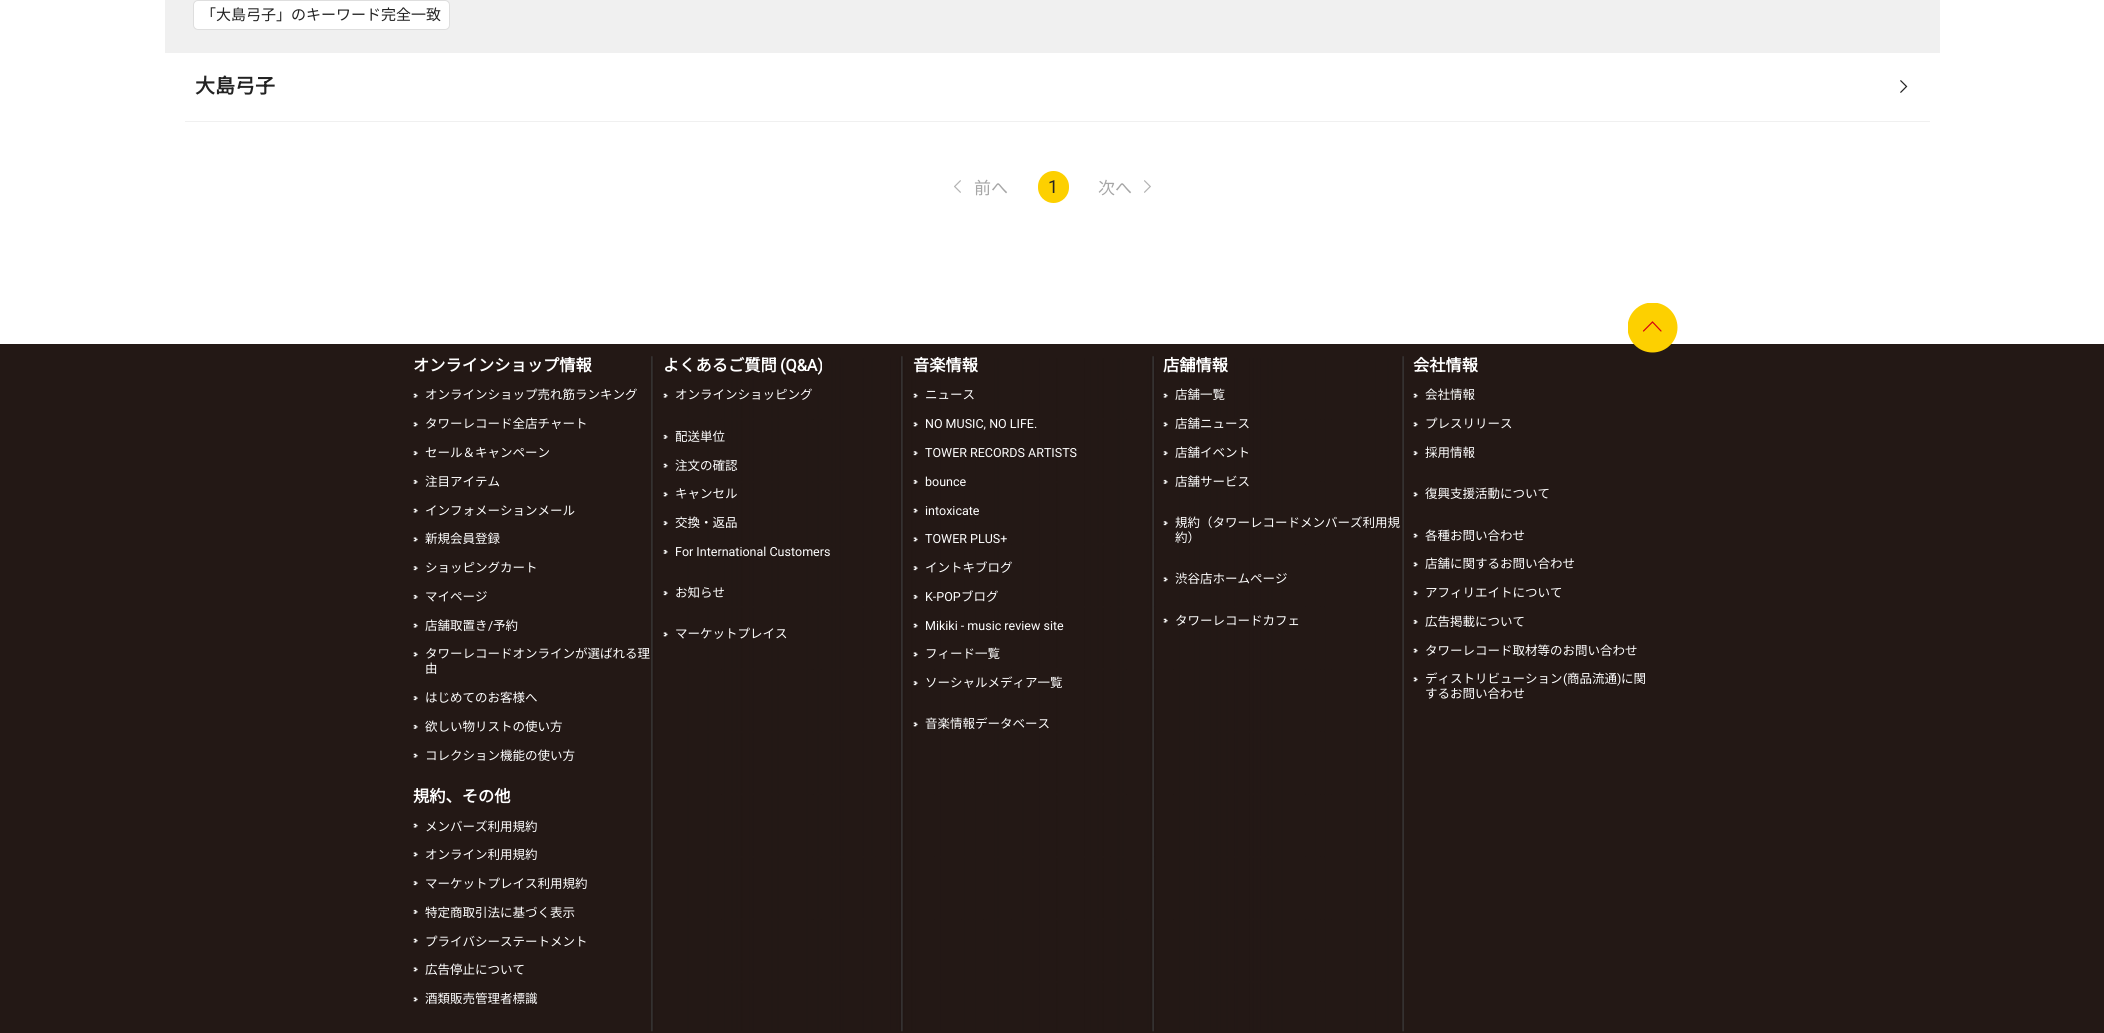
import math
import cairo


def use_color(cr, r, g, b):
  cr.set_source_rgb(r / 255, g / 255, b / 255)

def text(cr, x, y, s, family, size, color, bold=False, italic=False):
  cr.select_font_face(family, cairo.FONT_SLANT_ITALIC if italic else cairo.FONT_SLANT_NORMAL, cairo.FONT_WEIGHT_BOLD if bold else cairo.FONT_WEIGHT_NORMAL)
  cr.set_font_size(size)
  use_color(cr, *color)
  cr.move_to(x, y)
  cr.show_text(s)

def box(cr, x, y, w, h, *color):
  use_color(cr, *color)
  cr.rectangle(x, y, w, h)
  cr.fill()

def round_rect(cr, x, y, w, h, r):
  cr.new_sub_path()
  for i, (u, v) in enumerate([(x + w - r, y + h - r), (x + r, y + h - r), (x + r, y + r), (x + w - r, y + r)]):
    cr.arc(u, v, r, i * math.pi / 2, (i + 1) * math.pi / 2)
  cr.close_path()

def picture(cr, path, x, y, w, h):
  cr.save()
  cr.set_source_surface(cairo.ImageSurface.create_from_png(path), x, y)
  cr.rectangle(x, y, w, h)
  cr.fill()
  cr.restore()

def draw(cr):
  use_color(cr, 255, 255, 255)
  cr.paint()
  box(cr, 165, 0, 1775, 53, 240, 240, 240)
  use_color(cr, 255, 255, 255)
  round_rect(cr, 193.5, 0.5, 256, 29, 4.5)
  cr.fill_preserve()
  use_color(cr, 222, 222, 222)
  cr.set_line_width(1)
  cr.stroke()
  box(cr, 185, 121, 1745, 1, 240, 240, 240)
  picture(cr, "img_01.png", 1900, 80, 8, 13)
  picture(cr, "img_02.png", 954, 180, 7, 13)
  use_color(cr, 253, 208, 0)
  round_rect(cr, 1038, 171, 31, 32, 15.5)
  cr.fill()
  picture(cr, "img_03.png", 1144, 180, 7, 13)
  box(cr, 0, 344, 2104, 689, 35, 24, 21)
  cr.save()
  cr.rectangle(1628, 303, 50, 50)
  cr.clip()
  use_color(cr, 253, 208, 0)
  cr.arc(1652.5, 327.5, 25, 0, 2 * math.pi)
  cr.fill()
  cr.restore()
  cr.new_path()
  cr.move_to(1643.5, 331)
  cr.line_to(1652.5, 322)
  cr.line_to(1661, 331)
  use_color(cr, 214, 0, 16)
  cr.set_line_width(1.2)
  cr.set_line_cap(cairo.LINE_CAP_ROUND)
  cr.stroke()
  picture(cr, "img_04.png", 651, 356, 753, 676)
  picture(cr, "img_05.png", 413, 393, 5, 5)
  picture(cr, "img_06.png", 413, 422, 5, 5)
  picture(cr, "img_07.png", 413, 451, 5, 5)
  picture(cr, "img_08.png", 413, 479, 5, 5)
  picture(cr, "img_09.png", 413, 508, 5, 5)
  picture(cr, "img_06.png", 413, 537, 5, 5)
  picture(cr, "img_07.png", 413, 566, 5, 5)
  picture(cr, "img_08.png", 413, 594, 5, 5)
  picture(cr, "img_09.png", 413, 623, 5, 5)
  picture(cr, "img_06.png", 413, 652, 5, 5)
  picture(cr, "img_07.png", 413, 696, 5, 5)
  picture(cr, "img_08.png", 413, 724, 5, 5)
  picture(cr, "img_09.png", 413, 753, 5, 5)
  picture(cr, "img_09.png", 413, 823, 5, 5)
  picture(cr, "img_06.png", 413, 852, 5, 5)
  picture(cr, "img_07.png", 413, 881, 5, 5)
  picture(cr, "img_08.png", 413, 909, 5, 5)
  picture(cr, "img_09.png", 413, 938, 5, 5)
  picture(cr, "img_06.png", 413, 967, 5, 5)
  picture(cr, "img_06.png", 413, 997, 5, 5)
  picture(cr, "img_10.png", 663, 393, 5, 5)
  picture(cr, "img_11.png", 663, 434, 5, 5)
  picture(cr, "img_12.png", 663, 463, 5, 5)
  picture(cr, "img_13.png", 663, 492, 5, 5)
  picture(cr, "img_14.png", 663, 521, 5, 5)
  picture(cr, "img_11.png", 663, 549, 5, 5)
  picture(cr, "img_14.png", 663, 591, 5, 5)
  picture(cr, "img_13.png", 663, 632, 5, 5)
  picture(cr, "img_10.png", 913, 393, 5, 5)
  picture(cr, "img_13.png", 913, 422, 5, 5)
  picture(cr, "img_14.png", 913, 451, 5, 5)
  picture(cr, "img_11.png", 913, 479, 5, 5)
  picture(cr, "img_12.png", 913, 508, 5, 5)
  picture(cr, "img_13.png", 913, 537, 5, 5)
  picture(cr, "img_14.png", 913, 566, 5, 5)
  picture(cr, "img_11.png", 913, 594, 5, 5)
  picture(cr, "img_12.png", 913, 623, 5, 5)
  picture(cr, "img_13.png", 913, 652, 5, 5)
  picture(cr, "img_14.png", 913, 681, 5, 5)
  picture(cr, "img_13.png", 913, 722, 5, 5)
  picture(cr, "img_05.png", 1163, 393, 5, 5)
  picture(cr, "img_06.png", 1163, 422, 5, 5)
  picture(cr, "img_07.png", 1163, 451, 5, 5)
  picture(cr, "img_08.png", 1163, 479, 5, 5)
  picture(cr, "img_07.png", 1163, 521, 5, 5)
  picture(cr, "img_06.png", 1163, 577, 5, 5)
  picture(cr, "img_09.png", 1163, 618, 5, 5)
  picture(cr, "img_10.png", 1413, 393, 5, 5)
  picture(cr, "img_13.png", 1413, 422, 5, 5)
  picture(cr, "img_14.png", 1413, 451, 5, 5)
  picture(cr, "img_13.png", 1413, 492, 5, 5)
  picture(cr, "img_12.png", 1413, 533, 5, 5)
  picture(cr, "img_13.png", 1413, 562, 5, 5)
  picture(cr, "img_14.png", 1413, 591, 5, 5)
  picture(cr, "img_11.png", 1413, 619, 5, 5)
  picture(cr, "img_12.png", 1413, 648, 5, 5)
  picture(cr, "img_13.png", 1413, 677, 5, 5)
  text(cr, 201, 20, "「大島弓子」のキーワード完全一致", "Noto Sans JP Thin", 15, (35, 35, 35))
  text(cr, 195, 93, "大島弓子", "Noto Sans JP", 20, (35, 35, 35), bold=True)
  text(cr, 974, 194, "前へ", "Noto Sans JP Thin", 17, (166, 166, 166))
  text(cr, 1048, 193, "1", "Roboto", 18, (35, 35, 35))
  text(cr, 1098, 194, "次へ", "Noto Sans JP Thin", 17, (166, 166, 166))
  text(cr, 413, 371, "オンラインショップ情報", "Noto Sans JP", 16.25, (255, 255, 255), bold=True)
  text(cr, 425, 399, "オンラインショップ売れ筋ランキング", "Noto Sans JP Thin", 12.5, (255, 255, 255))
  text(cr, 425, 428, "タワーレコード全店チャート", "Noto Sans JP Thin", 12.5, (255, 255, 255))
  text(cr, 425, 457, "セール＆キャンペーン", "Noto Sans JP Thin", 12.5, (255, 255, 255))
  text(cr, 425, 486, "注目アイテム", "Noto Sans JP Thin", 12.5, (255, 255, 255))
  text(cr, 425, 515, "インフォメーションメール", "Noto Sans JP Thin", 12.5, (255, 255, 255))
  text(cr, 425, 543, "新規会員登録", "Noto Sans JP Thin", 12.5, (255, 255, 255))
  text(cr, 425, 572, "ショッピングカート", "Noto Sans JP Thin", 12.5, (255, 255, 255))
  text(cr, 425, 601, "マイページ", "Noto Sans JP Thin", 12.5, (255, 255, 255))
  text(cr, 425, 630, "店舗取置き", "Noto Sans JP Thin", 12.5, (255, 255, 255))
  text(cr, 488, 630, "/", "Roboto", 12.5, (255, 255, 255))
  text(cr, 493, 630, "予約", "Noto Sans JP Thin", 12.5, (255, 255, 255))
  text(cr, 425, 658, "タワーレコードオンラインが選ばれる理", "Noto Sans JP Thin", 12.5, (255, 255, 255))
  text(cr, 425, 673, "由", "Noto Sans JP Thin", 12.5, (255, 255, 255))
  text(cr, 425, 702, "はじめてのお客様へ", "Noto Sans JP Thin", 12.5, (255, 255, 255))
  text(cr, 425, 731, "欲しい物リストの使い方", "Noto Sans JP Thin", 12.5, (255, 255, 255))
  text(cr, 425, 760, "コレクション機能の使い方", "Noto Sans JP Thin", 12.5, (255, 255, 255))
  text(cr, 413, 802, "規約、その他", "Noto Sans JP", 16.25, (255, 255, 255), bold=True)
  text(cr, 425, 831, "メンバーズ利用規約", "Noto Sans JP Thin", 12.5, (255, 255, 255))
  text(cr, 425, 859, "オンライン利用規約", "Noto Sans JP Thin", 12.5, (255, 255, 255))
  text(cr, 425, 888, "マーケットプレイス利用規約", "Noto Sans JP Thin", 12.5, (255, 255, 255))
  text(cr, 425, 917, "特定商取引法に基づく表示", "Noto Sans JP Thin", 12.5, (255, 255, 255))
  text(cr, 425, 946, "プライバシーステートメント", "Noto Sans JP Thin", 12.5, (255, 255, 255))
  text(cr, 425, 974, "広告停止について", "Noto Sans JP Thin", 12.5, (255, 255, 255))
  text(cr, 425, 1003, "酒類販売管理者標識", "Noto Sans JP Thin", 12.5, (255, 255, 255))
  text(cr, 663, 371, "よくあるご質問", "Noto Sans JP", 16.25, (255, 255, 255), bold=True)
  text(cr, 780, 371, "(Q&A)", "Roboto", 16.25, (255, 255, 255), bold=True)
  text(cr, 675, 399, "オンラインショッピング", "Noto Sans JP Thin", 12.5, (255, 255, 255))
  text(cr, 675, 441, "配送単位", "Noto Sans JP Thin", 12.5, (255, 255, 255))
  text(cr, 675, 470, "注文の確認", "Noto Sans JP Thin", 12.5, (255, 255, 255))
  text(cr, 675, 498, "キャンセル", "Noto Sans JP Thin", 12.5, (255, 255, 255))
  text(cr, 675, 527, "交換・返品", "Noto Sans JP Thin", 12.5, (255, 255, 255))
  text(cr, 675, 556, "For International Customers", "Roboto", 12.5, (255, 255, 255))
  text(cr, 675, 597, "お知らせ", "Noto Sans JP Thin", 12.5, (255, 255, 255))
  text(cr, 675, 638, "マーケットプレイス", "Noto Sans JP Thin", 12.5, (255, 255, 255))
  text(cr, 913, 371, "音楽情報", "Noto Sans JP", 16.25, (255, 255, 255), bold=True)
  text(cr, 925, 399, "ニュース", "Noto Sans JP Thin", 12.5, (255, 255, 255))
  text(cr, 925, 428, "NO MUSIC, NO LIFE.", "Roboto", 12.5, (255, 255, 255))
  text(cr, 925, 457, "TOWER RECORDS ARTISTS", "Roboto", 12.5, (255, 255, 255))
  text(cr, 925, 486, "bounce", "Roboto", 12.5, (255, 255, 255))
  text(cr, 925, 515, "intoxicate", "Roboto", 12.5, (255, 255, 255))
  text(cr, 925, 543, "TOWER PLUS+", "Roboto", 12.5, (255, 255, 255))
  text(cr, 925, 572, "イントキブログ", "Noto Sans JP Thin", 12.5, (255, 255, 255))
  text(cr, 925, 601, "K-POP", "Roboto", 12.5, (255, 255, 255))
  text(cr, 961, 601, "ブログ", "Noto Sans JP Thin", 12.5, (255, 255, 255))
  text(cr, 925, 630, "Mikiki - music review site", "Roboto", 12.5, (255, 255, 255))
  text(cr, 925, 658, "フィード一覧", "Noto Sans JP Thin", 12.5, (255, 255, 255))
  text(cr, 925, 687, "ソーシャルメディア一覧", "Noto Sans JP Thin", 12.5, (255, 255, 255))
  text(cr, 925, 728, "音楽情報データベース", "Noto Sans JP Thin", 12.5, (255, 255, 255))
  text(cr, 1163, 371, "店舗情報", "Noto Sans JP", 16.25, (255, 255, 255), bold=True)
  text(cr, 1175, 399, "店舗一覧", "Noto Sans JP Thin", 12.5, (255, 255, 255))
  text(cr, 1175, 428, "店舗ニュース", "Noto Sans JP Thin", 12.5, (255, 255, 255))
  text(cr, 1175, 457, "店舗イベント", "Noto Sans JP Thin", 12.5, (255, 255, 255))
  text(cr, 1175, 486, "店舗サービス", "Noto Sans JP Thin", 12.5, (255, 255, 255))
  text(cr, 1175, 527, "規約（タワーレコードメンバーズ利用規", "Noto Sans JP Thin", 12.5, (255, 255, 255))
  text(cr, 1175, 542, "約）", "Noto Sans JP Thin", 12.5, (255, 255, 255))
  text(cr, 1175, 583, "渋谷店ホームページ", "Noto Sans JP Thin", 12.5, (255, 255, 255))
  text(cr, 1175, 625, "タワーレコードカフェ", "Noto Sans JP Thin", 12.5, (255, 255, 255))
  text(cr, 1413, 371, "会社情報", "Noto Sans JP", 16.25, (255, 255, 255), bold=True)
  text(cr, 1425, 399, "会社情報", "Noto Sans JP Thin", 12.5, (255, 255, 255))
  text(cr, 1425, 428, "プレスリリース", "Noto Sans JP Thin", 12.5, (255, 255, 255))
  text(cr, 1425, 457, "採用情報", "Noto Sans JP Thin", 12.5, (255, 255, 255))
  text(cr, 1425, 498, "復興支援活動について", "Noto Sans JP Thin", 12.5, (255, 255, 255))
  text(cr, 1425, 540, "各種お問い合わせ", "Noto Sans JP Thin", 12.5, (255, 255, 255))
  text(cr, 1425, 568, "店舗に関するお問い合わせ", "Noto Sans JP Thin", 12.5, (255, 255, 255))
  text(cr, 1425, 597, "アフィリエイトについて", "Noto Sans JP Thin", 12.5, (255, 255, 255))
  text(cr, 1425, 626, "広告掲載について", "Noto Sans JP Thin", 12.5, (255, 255, 255))
  text(cr, 1425, 655, "タワーレコード取材等のお問い合わせ", "Noto Sans JP Thin", 12.5, (255, 255, 255))
  text(cr, 1425, 683, "ディストリビューション", "Noto Sans JP Thin", 12.5, (255, 255, 255))
  text(cr, 1563, 683, "(", "Roboto", 12.5, (255, 255, 255))
  text(cr, 1567, 683, "商品流通", "Noto Sans JP Thin", 12.5, (255, 255, 255))
  text(cr, 1617, 683, ")", "Roboto", 12.5, (255, 255, 255))
  text(cr, 1621, 683, "に関", "Noto Sans JP Thin", 12.5, (255, 255, 255))
  text(cr, 1425, 698, "するお問い合わせ", "Noto Sans JP Thin", 12.5, (255, 255, 255))


surface = cairo.ImageSurface(cairo.FORMAT_RGB24, 2104, 1033)
cr = cairo.Context(surface)
options = cairo.FontOptions()
options.set_hint_metrics(cairo.HINT_METRICS_OFF)
options.set_hint_style(cairo.HINT_STYLE_NONE)
cr.set_font_options(options)
cr.set_miter_limit(4)
draw(cr)
surface.write_to_png("out.png")
